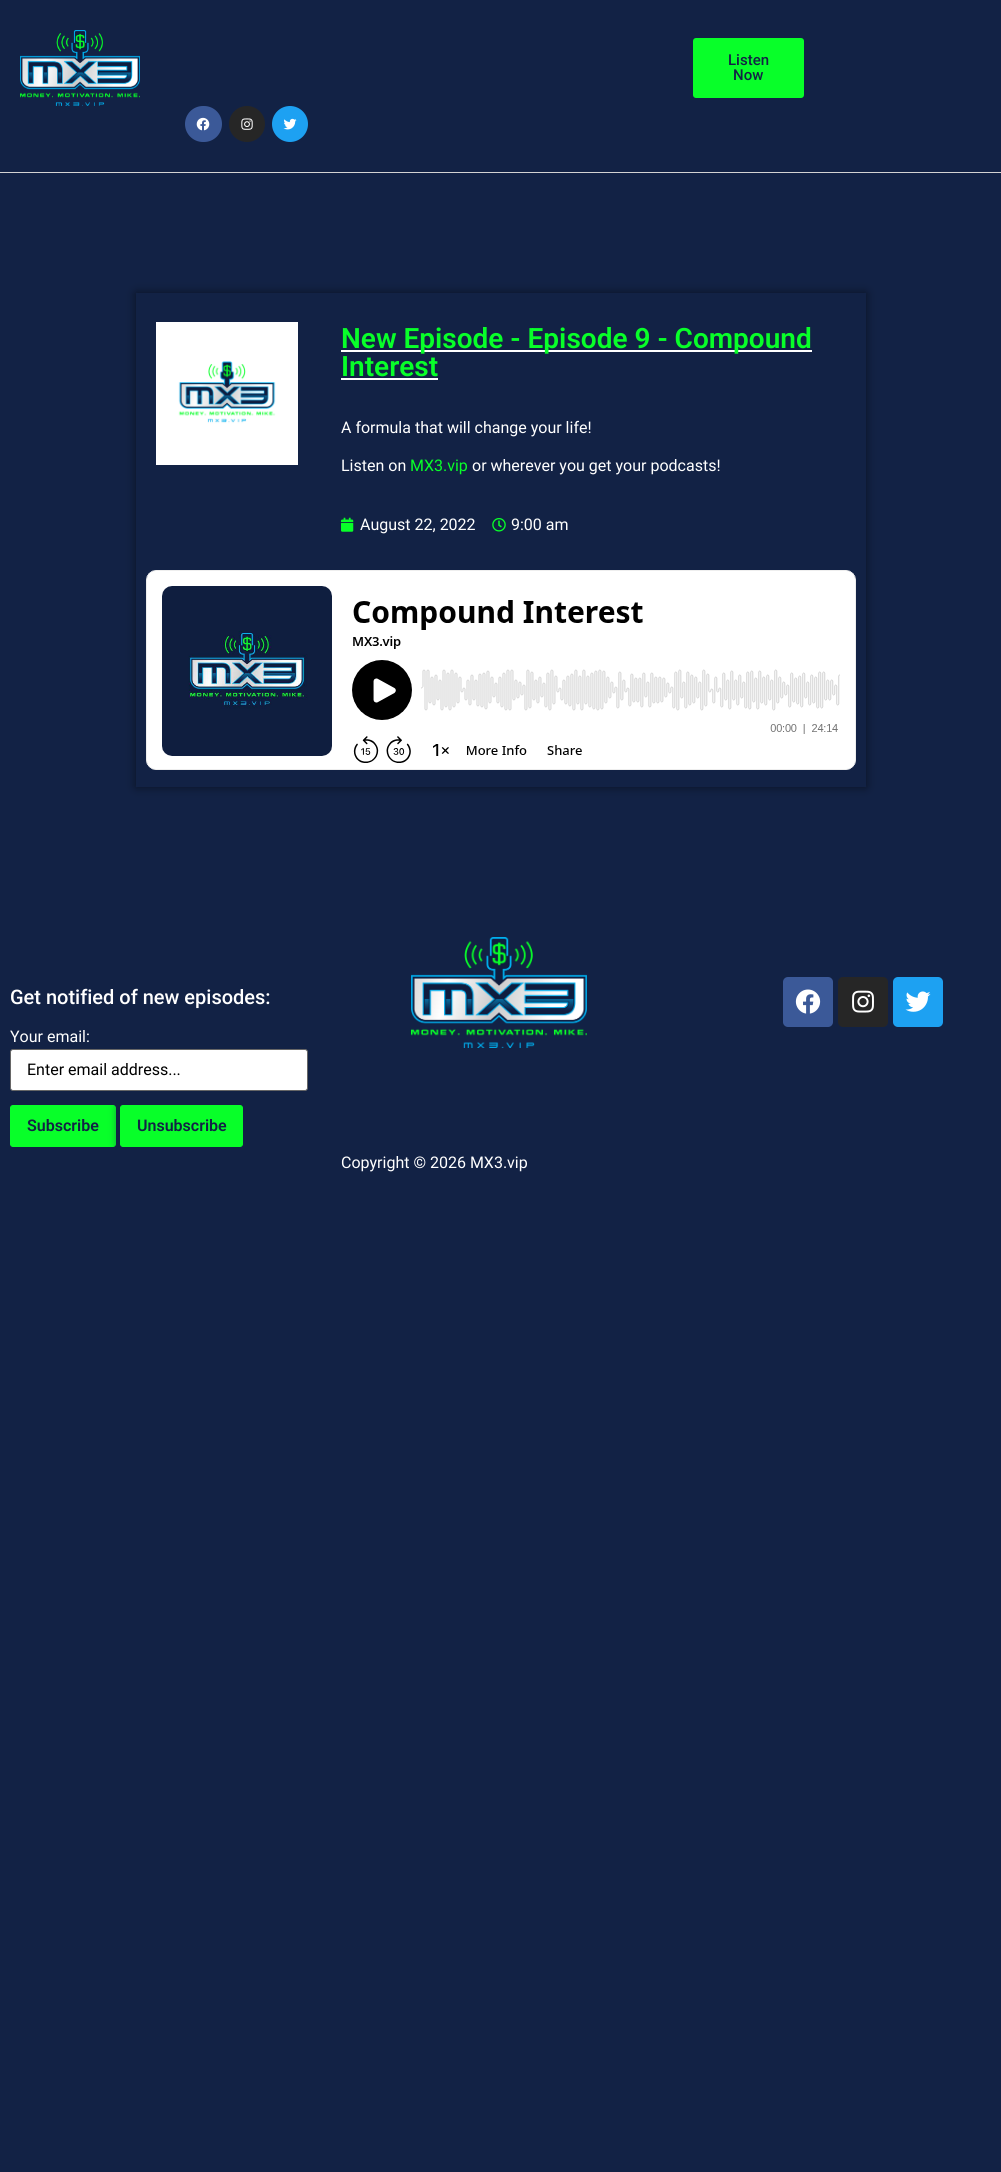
import math
import cairo


def use_color(cr, r, g, b):
  cr.set_source_rgb(r / 255, g / 255, b / 255)

def text(cr, x, y, s, family, size, color, bold=False, italic=False):
  cr.select_font_face(family, cairo.FONT_SLANT_ITALIC if italic else cairo.FONT_SLANT_NORMAL, cairo.FONT_WEIGHT_BOLD if bold else cairo.FONT_WEIGHT_NORMAL)
  cr.set_font_size(size)
  use_color(cr, *color)
  cr.move_to(x, y)
  cr.show_text(s)

def box(cr, x, y, w, h, *color):
  use_color(cr, *color)
  cr.rectangle(x, y, w, h)
  cr.fill()

def round_rect(cr, x, y, w, h, r):
  cr.new_sub_path()
  for i, (u, v) in enumerate([(x + w - r, y + h - r), (x + r, y + h - r), (x + r, y + r), (x + w - r, y + r)]):
    cr.arc(u, v, r, i * math.pi / 2, (i + 1) * math.pi / 2)
  cr.close_path()

def shadow(cr, x, y, w, h, r, blur, alpha):
  cr.push_group_with_content(cairo.CONTENT_ALPHA)
  cr.set_operator(cairo.OPERATOR_SOURCE)
  for i in range(15, -16, -2):
    e = blur * i / 6
    if min(w, h) + 2 * e > 0:
      cr.set_source_rgba(0, 0, 0, alpha * math.erfc((i - 1) / 8.5) / 2)
      round_rect(cr, x - e, y - e, w + 2 * e, h + 2 * e, max(0, min(r + e + blur * .6, min(w, h) / 2 + e)))
      cr.fill()
  cr.mask(cr.pop_group())

def picture(cr, path, x, y, w, h):
  cr.save()
  cr.set_source_surface(cairo.ImageSurface.create_from_png(path), x, y)
  cr.rectangle(x, y, w, h)
  cr.fill()
  cr.restore()

def draw(cr):
  use_color(cr, 18, 34, 69)
  cr.paint()
  box(cr, 0, 172, 1001, 1, 211, 211, 211)
  picture(cr, "img_01.png", 20, 30, 120, 76)
  use_color(cr, 8, 255, 41)
  round_rect(cr, 694.5, 39.5, 108, 57, 1.5)
  cr.fill_preserve()
  cr.set_line_width(3)
  cr.stroke()
  use_color(cr, 59, 89, 152)
  round_rect(cr, 185, 106, 37, 36, 18)
  cr.fill()
  picture(cr, "img_02.png", 196, 117, 14, 14)
  use_color(cr, 38, 38, 38)
  cr.arc(247, 124, 18, 0, 2 * math.pi)
  cr.fill()
  picture(cr, "img_03.png", 241, 118, 12, 12)
  use_color(cr, 29, 161, 242)
  cr.arc(290, 124, 18, 0, 2 * math.pi)
  cr.fill()
  picture(cr, "img_04.png", 283, 118, 14, 12)
  cr.save()
  cr.set_fill_rule(cairo.FILL_RULE_EVEN_ODD)
  cr.new_path()
  cr.move_to(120, 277)
  cr.line_to(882, 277)
  cr.line_to(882, 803)
  cr.line_to(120, 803)
  cr.close_path()
  cr.move_to(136, 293)
  cr.line_to(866, 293)
  cr.line_to(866, 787)
  cr.line_to(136, 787)
  cr.close_path()
  cr.clip()
  use_color(cr, 0, 0, 0)
  shadow(cr, 136, 293, 730, 494, 0, 5, 0.5)
  cr.restore()
  picture(cr, "img_05.png", 156, 322, 142, 143)
  box(cr, 341, 350, 471, 2, 255, 255, 255)
  box(cr, 341, 378, 97, 2, 255, 255, 255)
  picture(cr, "img_06.png", 341, 517, 13, 15)
  picture(cr, "img_07.png", 492, 518, 14, 14)
  picture(cr, "img_08.png", 146, 570, 710, 200)
  round_rect(cr, 10.5, 1049.5, 297, 41, 2.5)
  cr.fill_preserve()
  use_color(cr, 102, 102, 102)
  cr.set_line_width(1)
  cr.stroke()
  use_color(cr, 8, 255, 41)
  round_rect(cr, 10.5, 1105.5, 105, 41, 2.5)
  cr.fill_preserve()
  cr.stroke()
  use_color(cr, 18, 34, 69)
  shadow(cr, 120, 1105, 123, 42, 3, 5, 1)
  use_color(cr, 8, 255, 41)
  round_rect(cr, 120.5, 1105.5, 122, 41, 2.5)
  cr.fill_preserve()
  cr.stroke()
  picture(cr, "img_09.png", 411, 937, 176, 111)
  use_color(cr, 59, 89, 152)
  round_rect(cr, 783, 977, 50, 50, 5)
  cr.fill()
  picture(cr, "img_10.png", 795, 989, 26, 25)
  use_color(cr, 38, 38, 38)
  round_rect(cr, 838, 977, 50, 50, 5)
  cr.fill()
  picture(cr, "img_11.png", 852, 990, 22, 23)
  use_color(cr, 29, 161, 242)
  round_rect(cr, 893, 977, 50, 50, 5)
  cr.fill()
  picture(cr, "img_12.png", 905, 991, 26, 21)
  text(cr, 728, 65, "Listen", "Roboto Medium", 15, (18, 34, 69))
  text(cr, 733, 80, "Now", "Roboto Medium", 15, (18, 34, 69))
  text(cr, 341, 348, "New Episode - Episode 9 - Compound", "Roboto SemiBold", 28, (8, 255, 41))
  text(cr, 341, 376, "Interest", "Roboto SemiBold", 28, (8, 255, 41))
  text(cr, 341, 433, "A formula that will change your life!", "Roboto", 16, (255, 255, 255))
  text(cr, 341, 471, "Listen on", "Roboto", 16, (255, 255, 255))
  text(cr, 410, 471, "MX3.vip", "Roboto", 16, (8, 255, 41))
  text(cr, 472, 471, "or wherever you get your podcasts!", "Roboto", 16, (255, 255, 255))
  text(cr, 360, 530, "August 22, 2022", "Roboto", 16, (255, 255, 255))
  text(cr, 511, 530, "9:00 am", "Roboto", 16, (255, 255, 255))
  text(cr, 10, 1004, "Get notified of new episodes:", "Roboto Medium", 20, (255, 255, 255))
  text(cr, 10, 1042, "Your email:", "Roboto", 16, (255, 255, 255))
  text(cr, 27, 1075, "Enter email address...", "Roboto", 16, (0, 0, 0))
  text(cr, 27, 1131, "Subscribe", "Roboto SemiBold", 16, (18, 34, 69))
  text(cr, 137, 1131, "Unsubscribe", "Roboto SemiBold", 16, (18, 34, 69))
  text(cr, 341, 1168, "Copyright © 2026 MX3.vip", "Roboto", 16, (255, 255, 255))


surface = cairo.ImageSurface(cairo.FORMAT_RGB24, 1001, 2172)
cr = cairo.Context(surface)
options = cairo.FontOptions()
options.set_hint_metrics(cairo.HINT_METRICS_OFF)
options.set_hint_style(cairo.HINT_STYLE_NONE)
cr.set_font_options(options)
cr.set_miter_limit(4)
draw(cr)
surface.write_to_png("out.png")
